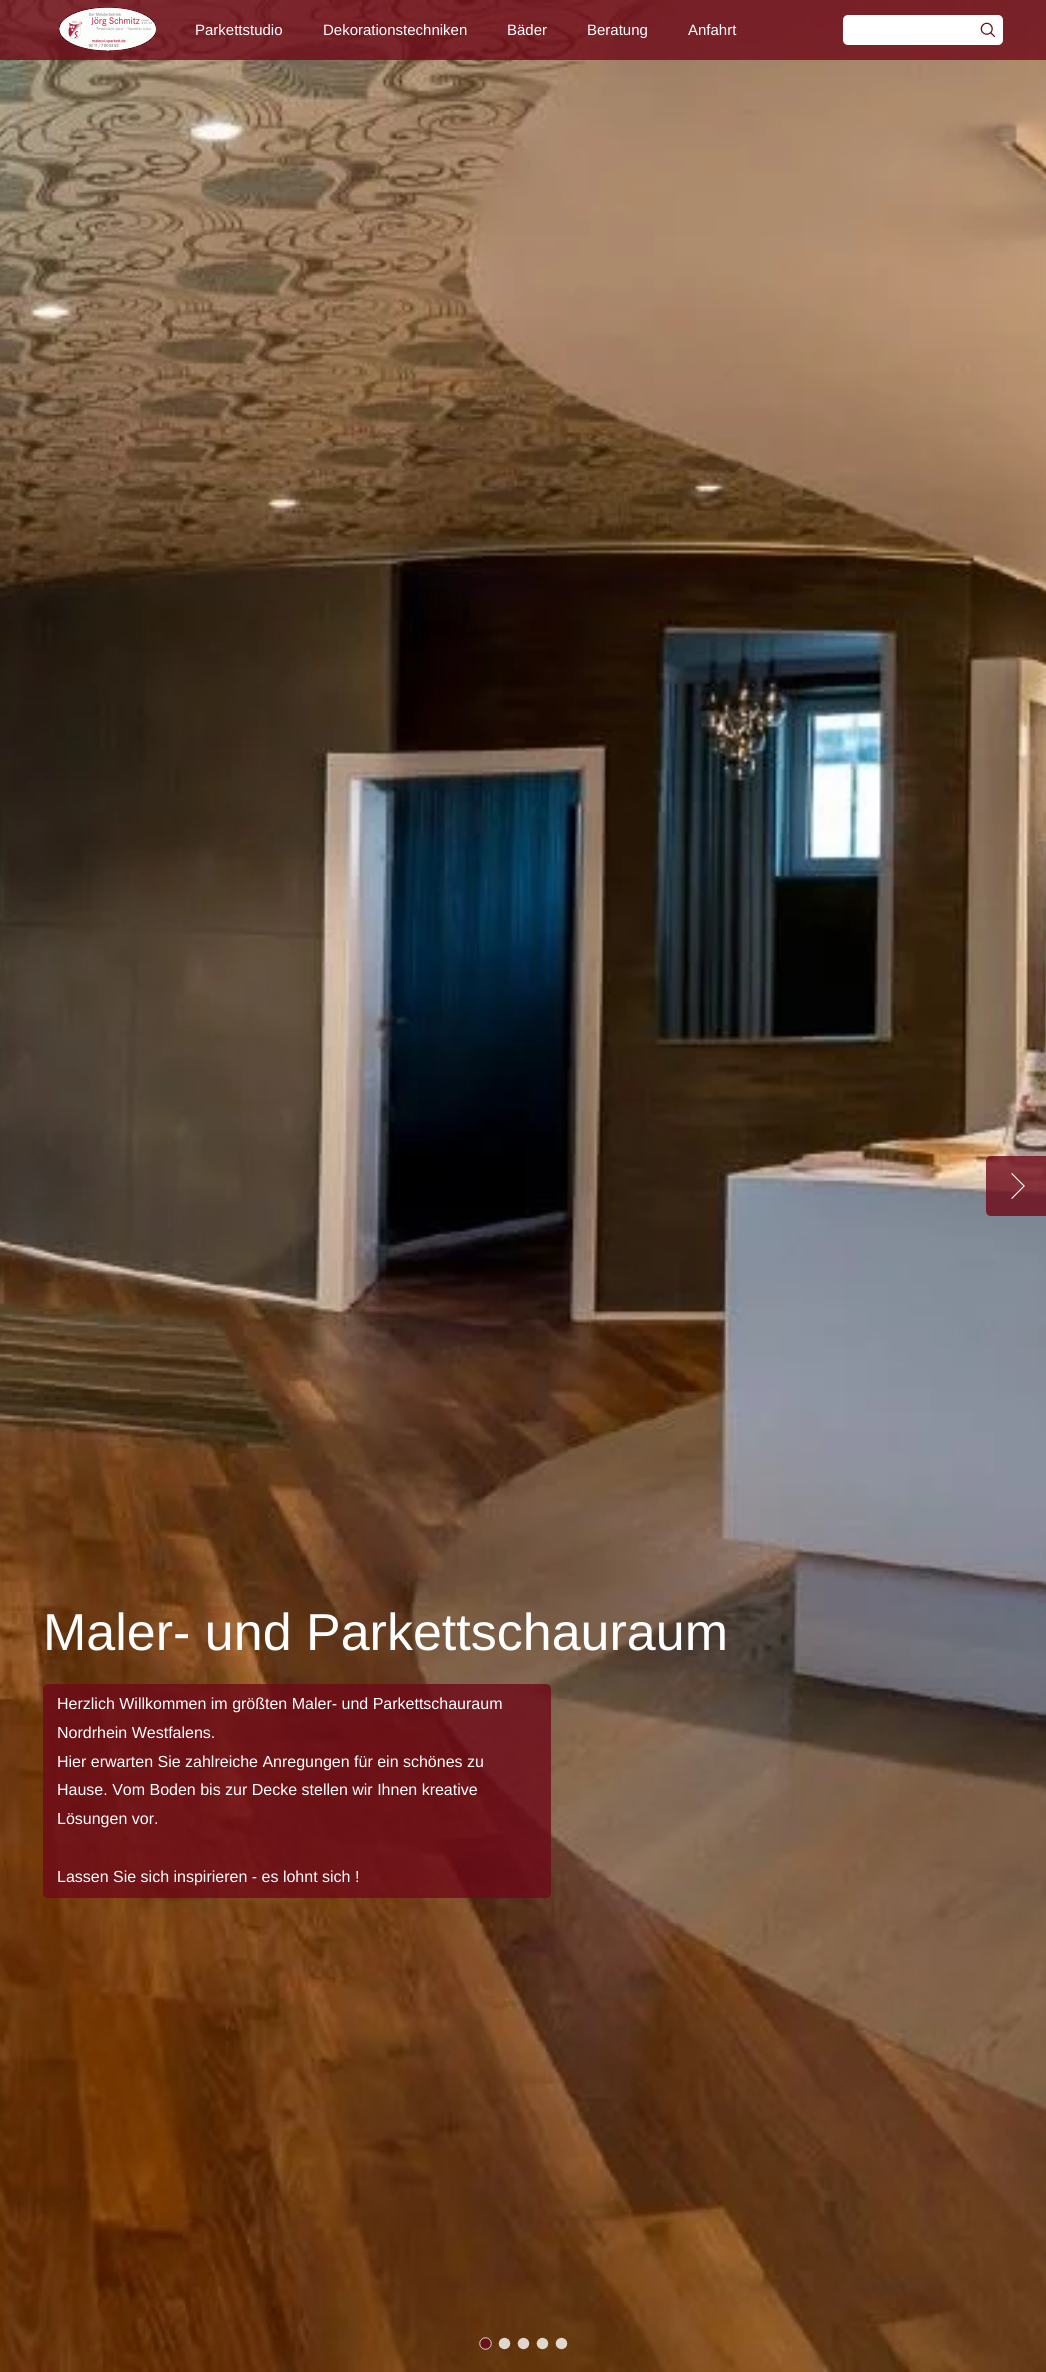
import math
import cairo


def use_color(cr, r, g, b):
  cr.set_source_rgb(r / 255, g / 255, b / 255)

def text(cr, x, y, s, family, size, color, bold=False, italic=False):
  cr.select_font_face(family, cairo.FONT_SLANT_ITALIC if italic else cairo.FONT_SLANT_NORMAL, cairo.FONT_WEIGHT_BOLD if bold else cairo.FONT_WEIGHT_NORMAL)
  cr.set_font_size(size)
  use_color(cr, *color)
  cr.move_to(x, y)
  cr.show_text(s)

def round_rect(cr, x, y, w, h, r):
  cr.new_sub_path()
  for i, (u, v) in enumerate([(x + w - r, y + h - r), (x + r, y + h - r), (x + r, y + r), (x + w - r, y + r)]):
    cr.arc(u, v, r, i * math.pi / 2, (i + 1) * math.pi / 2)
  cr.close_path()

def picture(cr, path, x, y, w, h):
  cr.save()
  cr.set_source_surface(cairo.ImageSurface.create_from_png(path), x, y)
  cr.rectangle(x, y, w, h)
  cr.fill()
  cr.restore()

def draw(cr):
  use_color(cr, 255, 255, 255)
  cr.paint()
  picture(cr, "img_04.png", 0, 0, 1046, 2372)
  cr.set_source_rgba(0.431, 0.035, 0.094, 0.8)
  cr.rectangle(0, 0, 1046, 60)
  cr.fill()
  picture(cr, "img_01.png", 59, 7, 98, 44)
  use_color(cr, 255, 255, 255)
  round_rect(cr, 843, 15, 160, 30, 5)
  cr.fill()
  picture(cr, "img_02.png", 980, 22, 16, 16)
  cr.set_source_rgba(0.431, 0.035, 0.094, 0.8)
  cr.new_path()
  cr.move_to(991, 1156)
  cr.line_to(1046, 1156)
  cr.line_to(1046, 1216)
  cr.line_to(991, 1216)
  cr.curve_to(988, 1216, 986, 1214, 986, 1211)
  cr.line_to(986, 1161)
  cr.curve_to(986, 1158, 988, 1156, 991, 1156)
  cr.close_path()
  cr.fill()
  picture(cr, "img_03.png", 1011, 1173, 14, 26)
  round_rect(cr, 43, 1684, 508, 214, 5)
  cr.fill()
  picture(cr, "img_05.png", 479, 2337, 13, 13)
  picture(cr, "img_06.png", 498, 2337, 13, 13)
  picture(cr, "img_07.png", 517, 2337, 13, 13)
  picture(cr, "img_08.png", 536, 2337, 13, 13)
  picture(cr, "img_09.png", 555, 2337, 13, 13)
  text(cr, 195, 35, "Parkettstudio", "Liberation Sans", 15, (255, 255, 255))
  text(cr, 323, 35, "Dekorationstechniken", "Liberation Sans", 15, (255, 255, 255))
  text(cr, 507, 35, "Bäder", "Liberation Sans", 15, (255, 255, 255))
  text(cr, 587, 35, "Beratung", "Liberation Sans", 15, (255, 255, 255))
  text(cr, 688, 35, "Anfahrt", "Liberation Sans", 15, (255, 255, 255))
  text(cr, 43, 1650, "Maler- und Parkettschauraum", "Liberation Sans", 52, (255, 255, 255))
  text(cr, 57, 1709, "Herzlich Willkommen im größten Maler- und Parkettschauraum", "Liberation Sans", 16, (255, 255, 255))
  text(cr, 57, 1738, "Nordrhein Westfalens.", "Liberation Sans", 16, (255, 255, 255))
  text(cr, 57, 1767, "Hier erwarten Sie zahlreiche Anregungen für ein schönes zu", "Liberation Sans", 16, (255, 255, 255))
  text(cr, 57, 1795, "Hause. Vom Boden bis zur Decke stellen wir Ihnen kreative", "Liberation Sans", 16, (255, 255, 255))
  text(cr, 57, 1824, "Lösungen vor.", "Liberation Sans", 16, (255, 255, 255))
  text(cr, 57, 1882, "Lassen Sie sich inspirieren - es lohnt sich !", "Liberation Sans", 16, (255, 255, 255))


surface = cairo.ImageSurface(cairo.FORMAT_RGB24, 1046, 2372)
cr = cairo.Context(surface)
options = cairo.FontOptions()
options.set_hint_metrics(cairo.HINT_METRICS_OFF)
options.set_hint_style(cairo.HINT_STYLE_NONE)
cr.set_font_options(options)
cr.set_miter_limit(4)
draw(cr)
surface.write_to_png("out.png")
